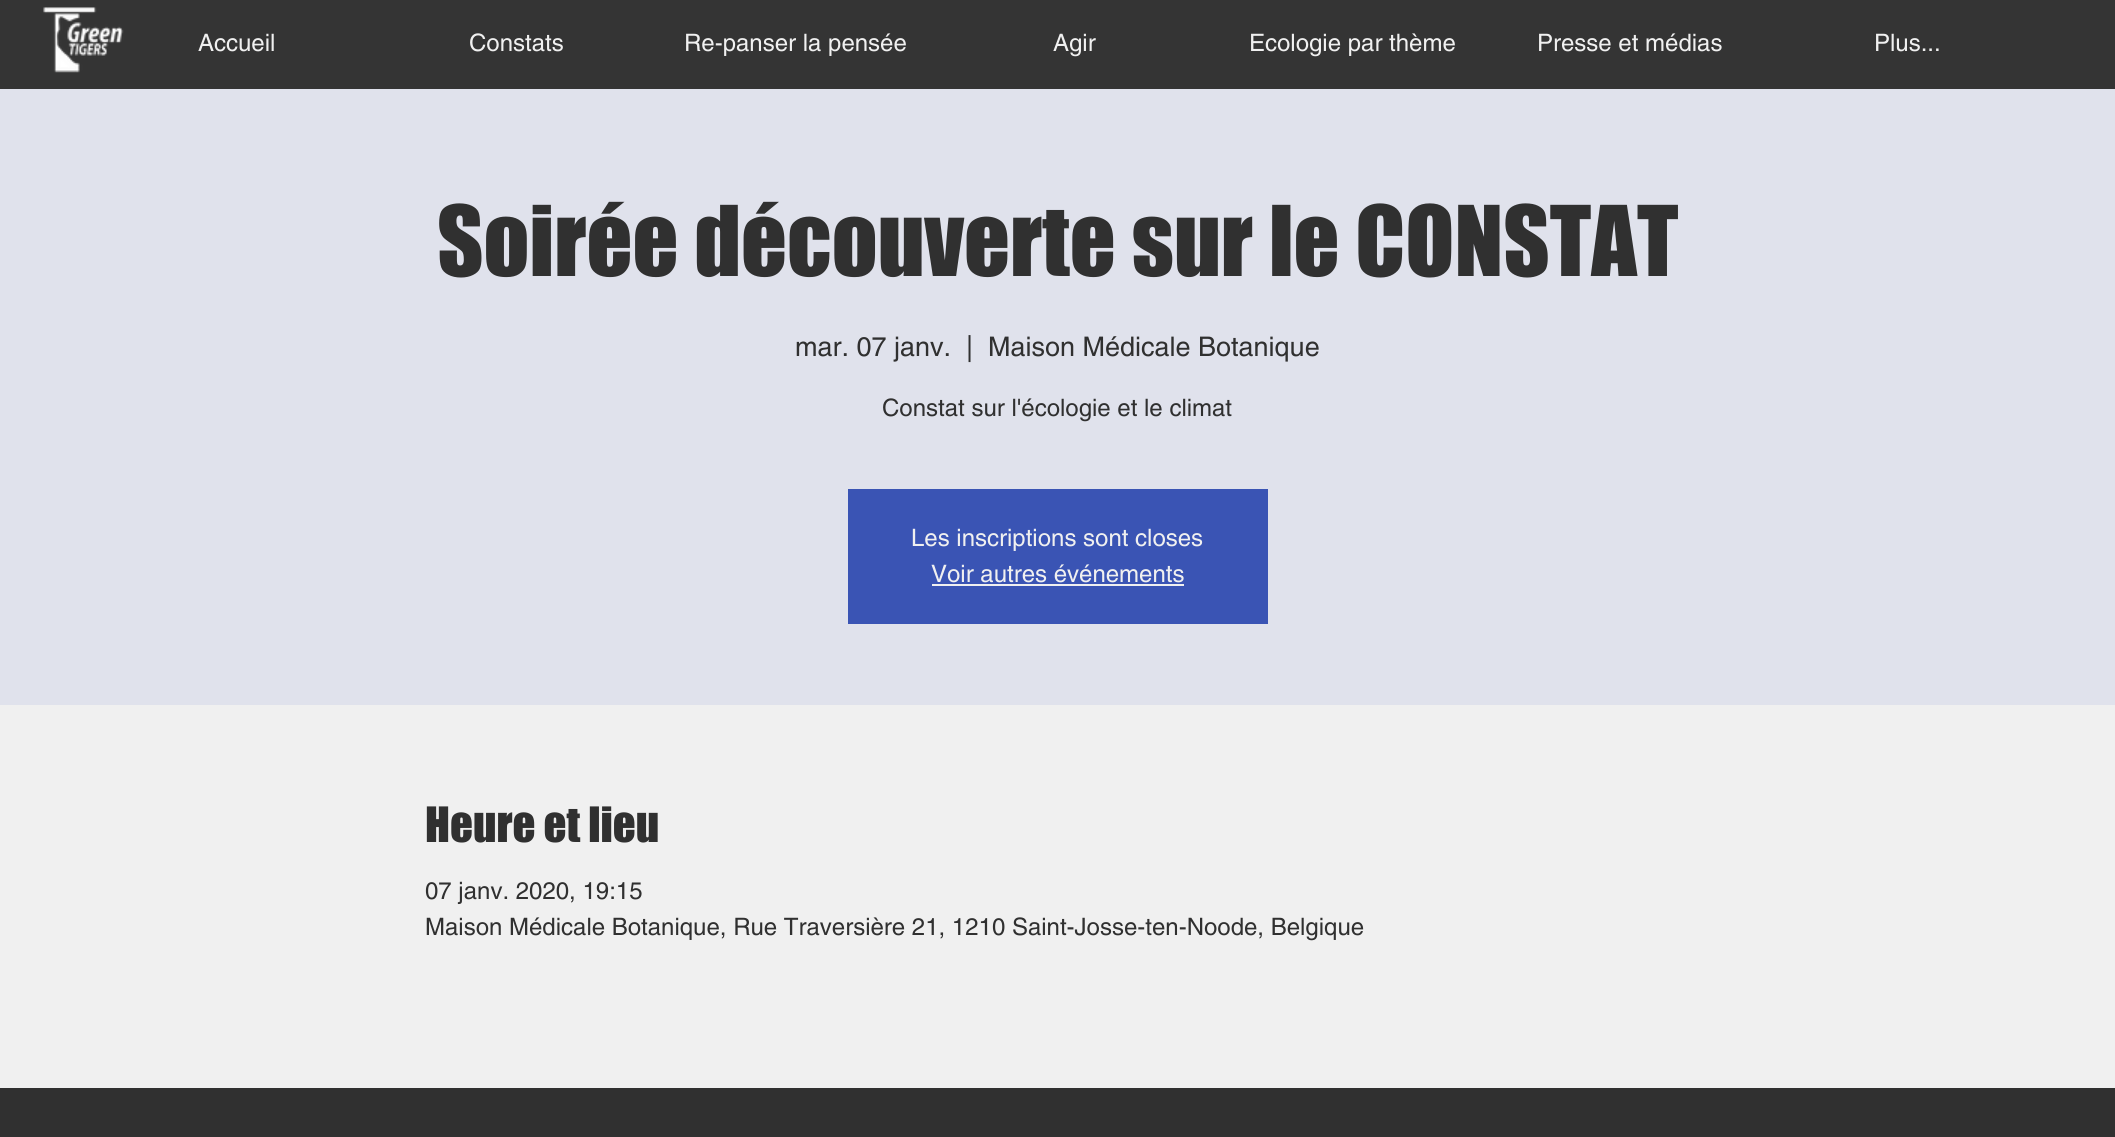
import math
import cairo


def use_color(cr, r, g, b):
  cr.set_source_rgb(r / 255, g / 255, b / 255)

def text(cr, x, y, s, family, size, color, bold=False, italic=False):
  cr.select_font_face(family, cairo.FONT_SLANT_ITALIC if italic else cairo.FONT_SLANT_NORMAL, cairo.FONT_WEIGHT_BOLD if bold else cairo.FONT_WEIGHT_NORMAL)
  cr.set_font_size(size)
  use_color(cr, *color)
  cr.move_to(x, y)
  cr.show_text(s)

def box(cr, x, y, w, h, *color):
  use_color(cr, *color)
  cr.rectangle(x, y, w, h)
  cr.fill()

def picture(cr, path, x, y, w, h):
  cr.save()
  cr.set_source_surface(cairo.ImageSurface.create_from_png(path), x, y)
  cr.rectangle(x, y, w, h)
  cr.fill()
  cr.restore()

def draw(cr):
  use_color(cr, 240, 240, 240)
  cr.paint()
  box(cr, 0, 0, 2115, 89, 52, 52, 52)
  picture(cr, "img_01.png", 43, 7, 81, 66)
  box(cr, 0, 89, 2115, 616, 224, 226, 236)
  box(cr, 848, 489, 420, 135, 58, 84, 180)
  box(cr, 932, 584, 252, 2, 240, 240, 240)
  box(cr, 0, 1088, 2115, 49, 48, 48, 48)
  text(cr, 198, 51, "Accueil", "helvetica", 24, (240, 240, 240))
  text(cr, 469, 51, "Constats", "helvetica", 24, (240, 240, 240))
  text(cr, 684, 51, "Re-panser la pensée", "helvetica", 24, (240, 240, 240))
  text(cr, 1053, 51, "Agir", "helvetica", 24, (240, 240, 240))
  text(cr, 1249, 51, "Ecologie par thème", "helvetica", 24, (240, 240, 240))
  text(cr, 1537, 51, "Presse et médias", "helvetica", 24, (240, 240, 240))
  text(cr, 1874, 51, "Plus...", "helvetica", 24, (240, 240, 240))
  text(cr, 437, 276, "Soirée découverte sur le CONSTAT", "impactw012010", 90, (48, 48, 48))
  text(cr, 795, 356, "mar. 07 janv.", "helvetica", 27, (48, 48, 48))
  text(cr, 966, 356, "|", "helvetica", 27, (48, 48, 48))
  text(cr, 988, 356, "Maison Médicale Botanique", "helvetica", 27, (48, 48, 48))
  text(cr, 882, 416, "Constat sur l'écologie et le climat", "helvetica", 24, (48, 48, 48))
  text(cr, 911, 546, "Les inscriptions sont closes", "helvetica", 24, (240, 240, 240))
  text(cr, 931, 582, "Voir autres événements", "helvetica", 24, (240, 240, 240))
  text(cr, 425, 842, "Heure et lieu", "impactw012010", 45, (48, 48, 48))
  text(cr, 425, 899, "07 janv. 2020, 19:15", "helvetica", 24, (48, 48, 48))
  text(cr, 425, 935, "Maison Médicale Botanique, Rue Traversière 21, 1210 Saint-Josse-ten-Noode, Belgique", "helvetica", 24, (48, 48, 48))


surface = cairo.ImageSurface(cairo.FORMAT_RGB24, 2115, 1137)
cr = cairo.Context(surface)
options = cairo.FontOptions()
options.set_hint_metrics(cairo.HINT_METRICS_OFF)
options.set_hint_style(cairo.HINT_STYLE_NONE)
cr.set_font_options(options)
cr.set_miter_limit(4)
draw(cr)
surface.write_to_png("out.png")
